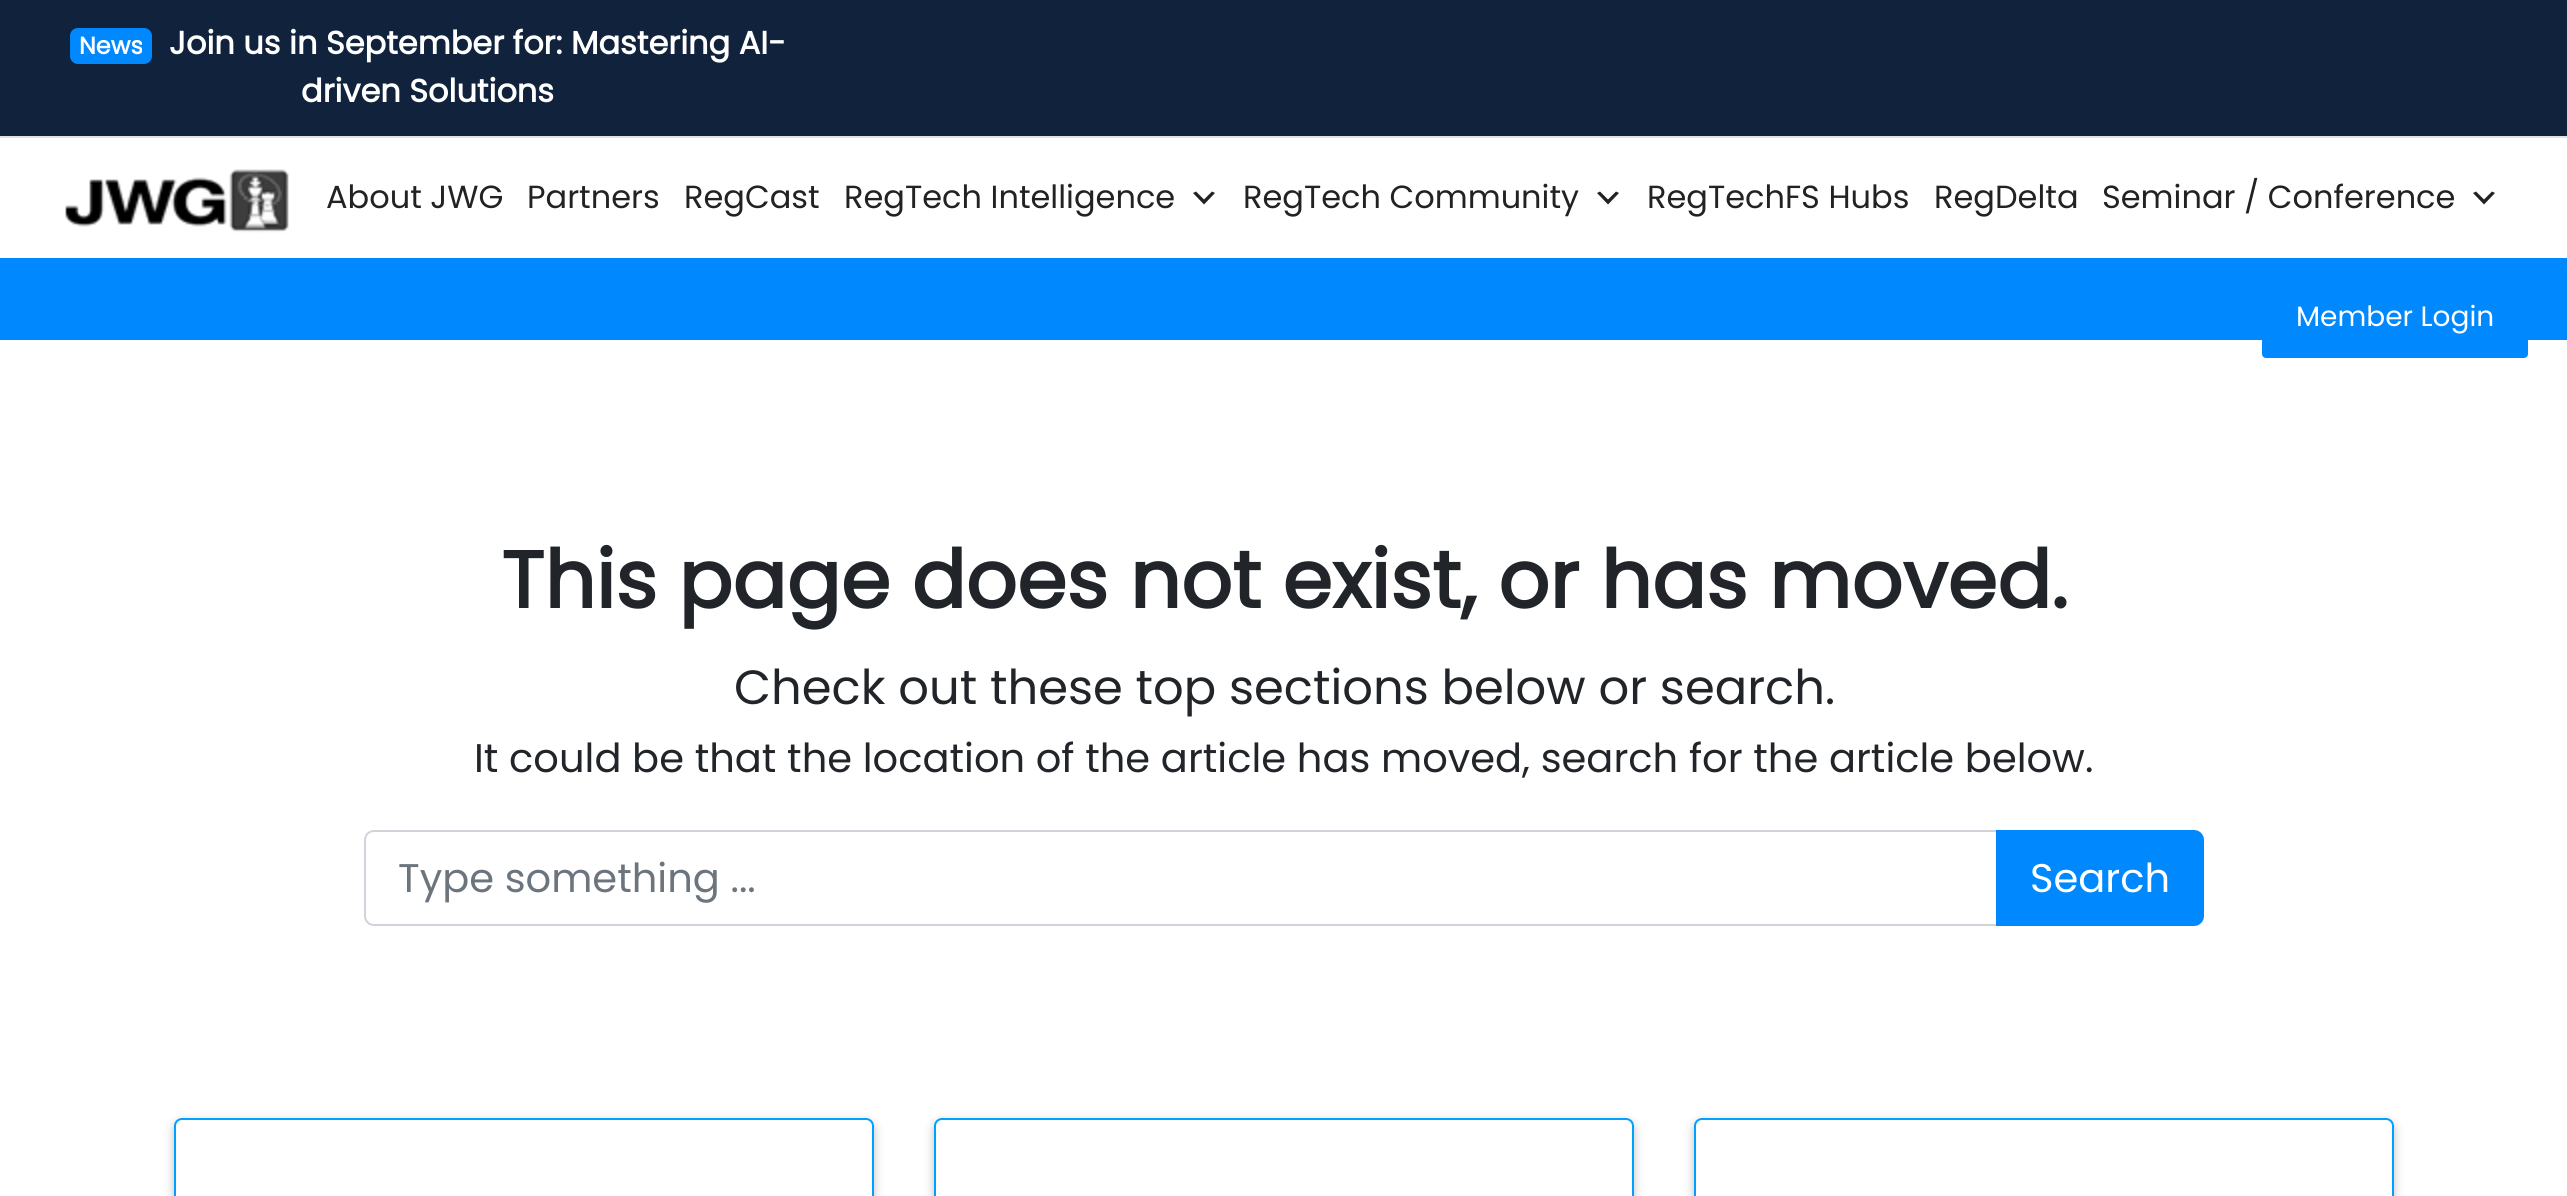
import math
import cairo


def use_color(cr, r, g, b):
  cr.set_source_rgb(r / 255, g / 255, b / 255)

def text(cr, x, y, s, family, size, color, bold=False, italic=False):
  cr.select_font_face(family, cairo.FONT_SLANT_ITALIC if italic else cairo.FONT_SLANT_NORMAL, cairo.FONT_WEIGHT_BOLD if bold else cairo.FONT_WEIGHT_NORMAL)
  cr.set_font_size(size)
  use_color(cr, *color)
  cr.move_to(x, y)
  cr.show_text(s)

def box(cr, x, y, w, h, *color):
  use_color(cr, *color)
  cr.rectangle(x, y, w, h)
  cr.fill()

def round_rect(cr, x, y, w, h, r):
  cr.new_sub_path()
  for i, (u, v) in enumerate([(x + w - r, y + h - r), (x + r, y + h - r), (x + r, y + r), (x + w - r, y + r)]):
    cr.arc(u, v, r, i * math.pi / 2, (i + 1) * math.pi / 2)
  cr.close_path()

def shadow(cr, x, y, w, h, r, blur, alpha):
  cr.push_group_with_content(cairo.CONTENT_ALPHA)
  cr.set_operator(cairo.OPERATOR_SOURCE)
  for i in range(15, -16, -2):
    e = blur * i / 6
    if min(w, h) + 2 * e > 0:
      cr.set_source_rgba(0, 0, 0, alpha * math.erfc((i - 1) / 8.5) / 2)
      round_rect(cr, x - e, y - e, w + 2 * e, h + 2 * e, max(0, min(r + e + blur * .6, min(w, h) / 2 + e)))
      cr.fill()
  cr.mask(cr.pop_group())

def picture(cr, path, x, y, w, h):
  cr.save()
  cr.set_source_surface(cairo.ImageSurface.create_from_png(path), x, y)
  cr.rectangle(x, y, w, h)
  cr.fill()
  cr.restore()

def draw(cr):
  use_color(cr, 255, 255, 255)
  cr.paint()
  box(cr, 0, 0, 2567, 136, 17, 34, 60)
  box(cr, 0, 136, 2567, 2, 225, 225, 228)
  use_color(cr, 0, 137, 255)
  round_rect(cr, 70, 28, 82, 36, 8)
  cr.fill()
  picture(cr, "img_01.png", 65, 169, 224, 64)
  use_color(cr, 34, 34, 34)
  cr.new_path()
  cr.move_to(1196, 191.5)
  cr.line_to(1204, 199.5)
  cr.line_to(1212, 191.5)
  cr.line_to(1215, 193)
  cr.line_to(1204, 204.5)
  cr.line_to(1193, 193)
  cr.close_path()
  cr.fill()
  cr.new_path()
  cr.move_to(1600, 191.5)
  cr.line_to(1608, 199.5)
  cr.line_to(1616, 191.5)
  cr.line_to(1619, 193)
  cr.line_to(1608, 204.5)
  cr.line_to(1597, 193)
  cr.close_path()
  cr.fill()
  cr.new_path()
  cr.move_to(2476, 191.5)
  cr.line_to(2484, 199.5)
  cr.line_to(2492, 191.5)
  cr.line_to(2495, 193)
  cr.line_to(2484, 204.5)
  cr.line_to(2473, 193)
  cr.close_path()
  cr.fill()
  box(cr, 0, 258, 2567, 82, 0, 137, 255)
  round_rect(cr, 2263, 277, 264, 80, 3)
  cr.fill_preserve()
  cr.stroke()
  cr.new_path()
  cr.move_to(374, 831)
  cr.line_to(1997, 831)
  cr.line_to(1997, 925)
  cr.line_to(374, 925)
  cr.curve_to(369, 925, 365, 921, 365, 916)
  cr.line_to(365, 840)
  cr.curve_to(365, 835, 369, 831, 374, 831)
  cr.close_path()
  use_color(cr, 206, 212, 218)
  cr.stroke()
  use_color(cr, 0, 137, 255)
  cr.new_path()
  cr.move_to(1997, 831)
  cr.line_to(2194, 831)
  cr.curve_to(2199, 831, 2203, 835, 2203, 840)
  cr.line_to(2203, 916)
  cr.curve_to(2203, 921, 2199, 925, 2194, 925)
  cr.line_to(1997, 925)
  cr.close_path()
  cr.fill_preserve()
  cr.stroke()
  use_color(cr, 0, 0, 0)
  shadow(cr, 174, 1122, 700, 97, 8, 5, 0.26)
  use_color(cr, 255, 255, 255)
  round_rect(cr, 175, 1119, 698, 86, 7)
  cr.fill_preserve()
  use_color(cr, 0, 160, 255)
  cr.stroke()
  use_color(cr, 0, 0, 0)
  shadow(cr, 934, 1122, 700, 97, 8, 5, 0.26)
  use_color(cr, 255, 255, 255)
  round_rect(cr, 935, 1119, 698, 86, 7)
  cr.fill_preserve()
  use_color(cr, 0, 160, 255)
  cr.stroke()
  use_color(cr, 0, 0, 0)
  shadow(cr, 1694, 1122, 700, 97, 8, 5, 0.26)
  use_color(cr, 255, 255, 255)
  round_rect(cr, 1695, 1119, 698, 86, 7)
  cr.fill_preserve()
  use_color(cr, 0, 160, 255)
  cr.stroke()
  text(cr, 79, 54, "News", "Poppins", 24, (255, 255, 255), bold=True)
  text(cr, 169, 54, "Join us in September for: Mastering AI-", "Poppins", 32, (255, 255, 255), bold=True)
  text(cr, 301, 102, "driven Solutions", "Poppins", 32, (255, 255, 255), bold=True)
  text(cr, 326, 208, "About JWG", "Poppins", 32, (34, 34, 34))
  text(cr, 527, 208, "Partners", "Poppins", 32, (34, 34, 34))
  text(cr, 684, 208, "RegCast", "Poppins", 32, (34, 34, 34))
  text(cr, 844, 208, "RegTech Intelligence", "Poppins", 32, (34, 34, 34))
  text(cr, 1243, 208, "RegTech Community", "Poppins", 32, (34, 34, 34))
  text(cr, 1647, 208, "RegTechFS Hubs", "Poppins", 32, (34, 34, 34))
  text(cr, 1934, 208, "RegDelta", "Poppins", 32, (34, 34, 34))
  text(cr, 2102, 208, "Seminar / Conference", "Poppins", 32, (34, 34, 34))
  text(cr, 2296, 326, "Member Login", "Poppins", 28, (255, 255, 255))
  text(cr, 501, 608, "This page does not exist, or has moved.", "Poppins", 80, (33, 37, 41), bold=True)
  text(cr, 734, 704, "Check out these top sections below or search.", "Poppins", 48, (33, 37, 41))
  text(cr, 474, 772, "It could be that the location of the article has moved, search for the article below.", "Poppins", 40, (33, 37, 41))
  text(cr, 398, 892, "Type something ...", "Poppins", 40, (108, 117, 125))
  text(cr, 2030, 892, "Search", "Poppins", 40, (255, 255, 255))


surface = cairo.ImageSurface(cairo.FORMAT_RGB24, 2567, 1196)
cr = cairo.Context(surface)
options = cairo.FontOptions()
options.set_hint_metrics(cairo.HINT_METRICS_OFF)
options.set_hint_style(cairo.HINT_STYLE_NONE)
cr.set_font_options(options)
cr.set_miter_limit(4)
draw(cr)
surface.write_to_png("out.png")
